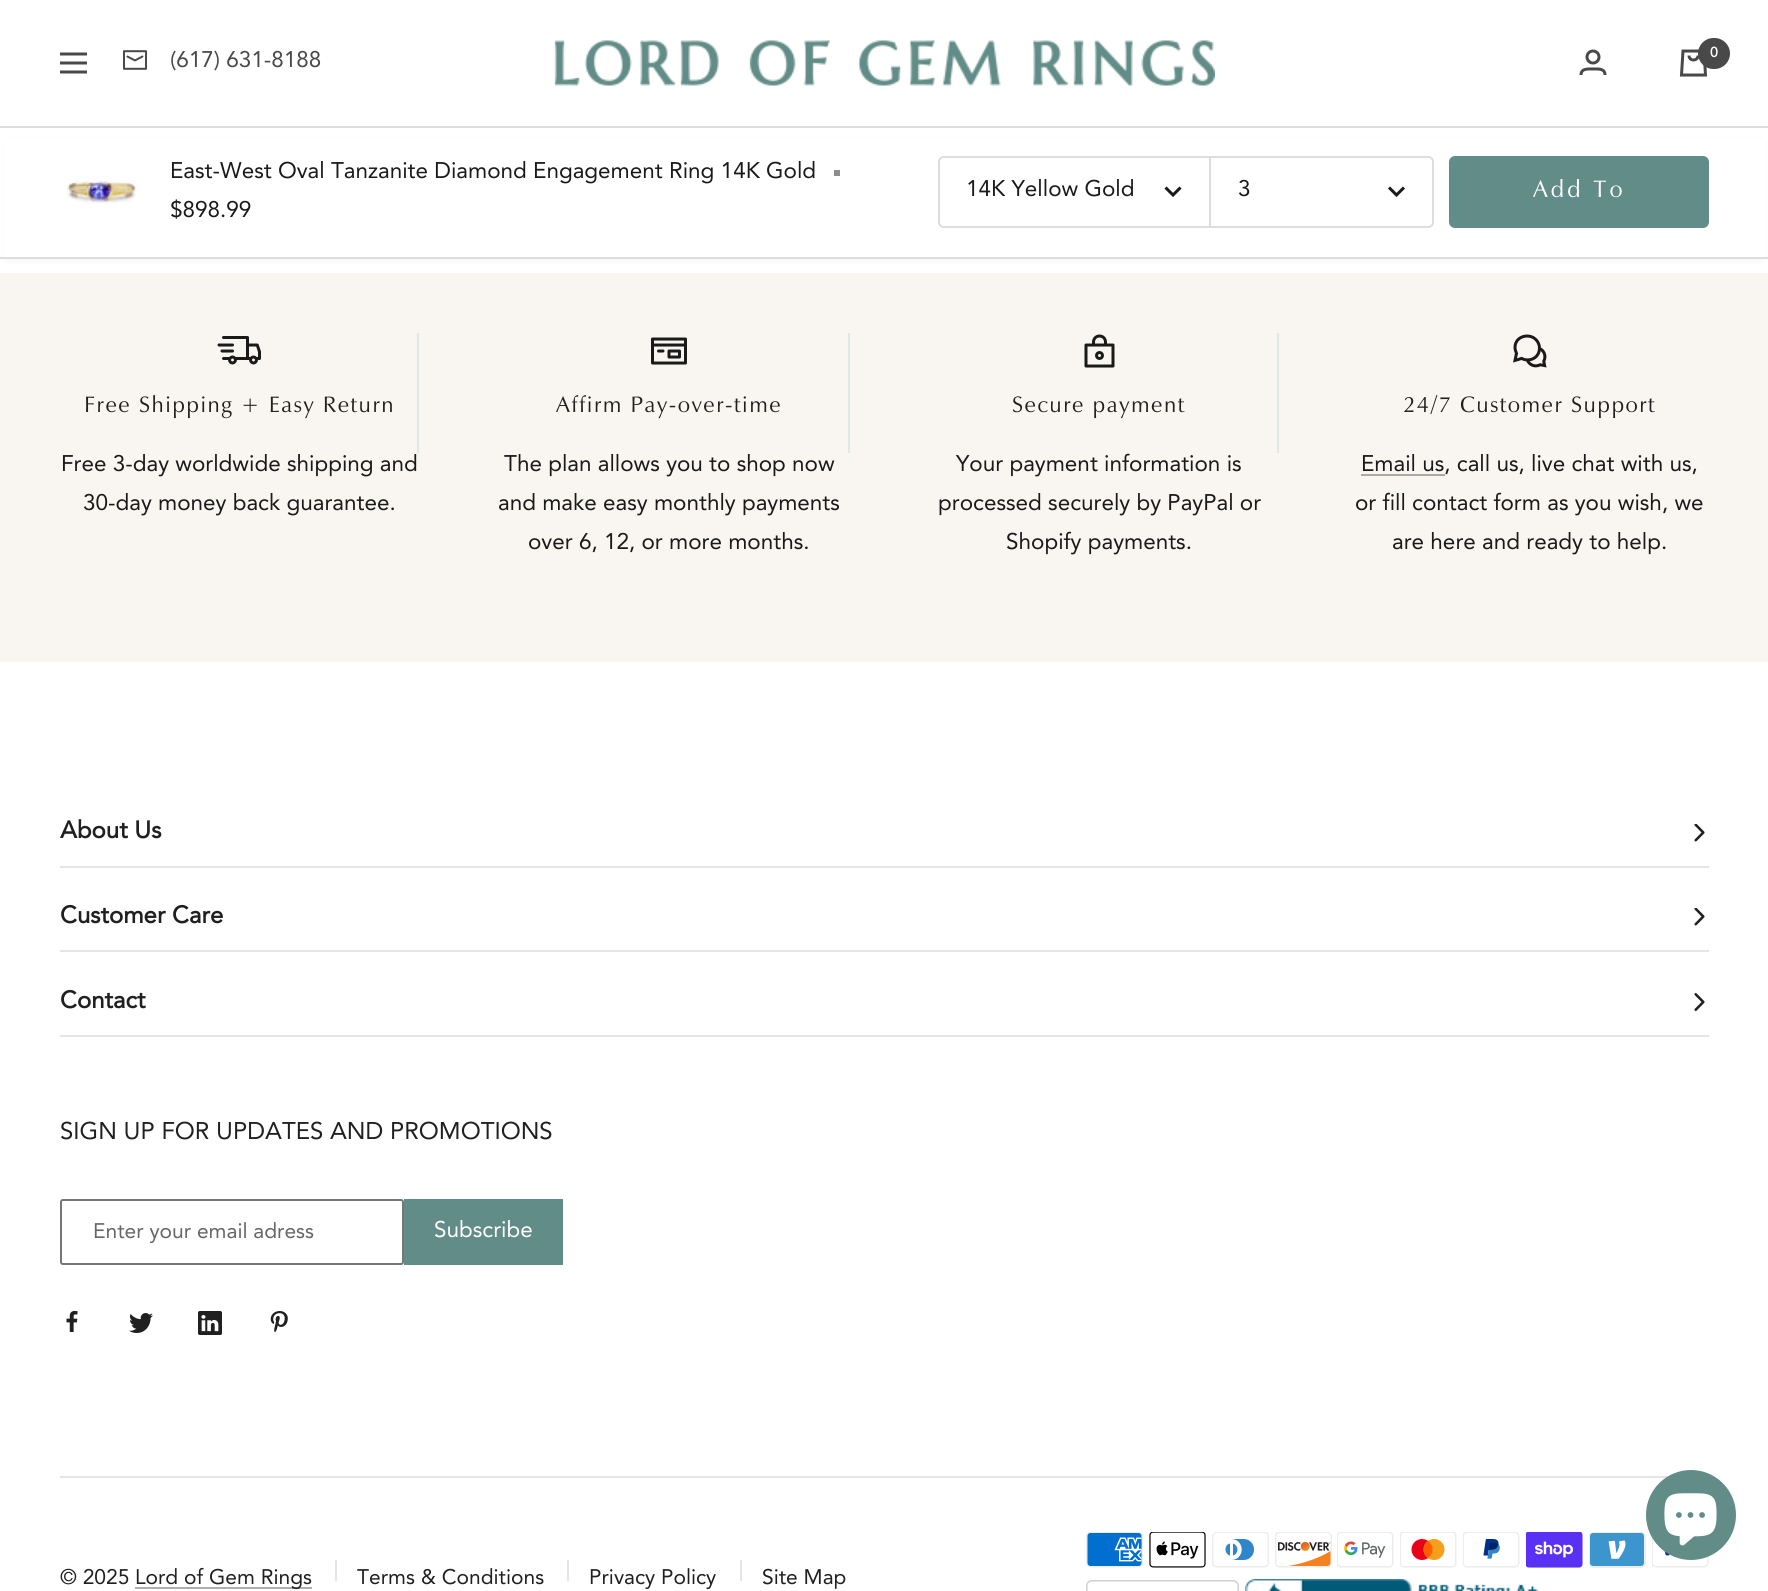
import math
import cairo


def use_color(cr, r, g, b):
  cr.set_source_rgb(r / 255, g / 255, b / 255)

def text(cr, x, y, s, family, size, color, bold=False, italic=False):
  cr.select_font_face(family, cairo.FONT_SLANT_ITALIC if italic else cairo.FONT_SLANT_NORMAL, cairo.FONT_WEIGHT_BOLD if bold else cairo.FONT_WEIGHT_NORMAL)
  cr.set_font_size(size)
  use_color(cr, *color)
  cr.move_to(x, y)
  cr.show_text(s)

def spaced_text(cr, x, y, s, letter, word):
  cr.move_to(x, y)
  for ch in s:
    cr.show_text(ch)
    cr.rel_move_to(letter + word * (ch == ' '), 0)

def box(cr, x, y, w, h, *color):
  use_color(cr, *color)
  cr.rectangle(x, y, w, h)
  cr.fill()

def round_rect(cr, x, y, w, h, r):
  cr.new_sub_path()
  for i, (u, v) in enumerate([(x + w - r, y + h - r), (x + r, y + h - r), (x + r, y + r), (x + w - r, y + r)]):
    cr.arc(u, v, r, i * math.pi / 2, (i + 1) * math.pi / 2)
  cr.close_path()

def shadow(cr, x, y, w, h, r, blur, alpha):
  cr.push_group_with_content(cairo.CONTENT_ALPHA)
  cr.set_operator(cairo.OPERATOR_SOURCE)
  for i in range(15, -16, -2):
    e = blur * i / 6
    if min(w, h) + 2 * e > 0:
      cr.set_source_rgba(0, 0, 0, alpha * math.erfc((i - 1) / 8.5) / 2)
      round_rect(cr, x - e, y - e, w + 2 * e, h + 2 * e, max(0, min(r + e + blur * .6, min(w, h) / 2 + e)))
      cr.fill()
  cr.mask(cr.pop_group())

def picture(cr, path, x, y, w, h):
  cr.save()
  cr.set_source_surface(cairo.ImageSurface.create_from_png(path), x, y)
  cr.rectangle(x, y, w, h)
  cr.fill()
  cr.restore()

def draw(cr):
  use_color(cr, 255, 255, 255)
  cr.paint()
  cr.new_path()
  cr.move_to(60, 54)
  cr.line_to(87, 54)
  cr.move_to(60, 72)
  cr.line_to(87, 72)
  cr.close_path()
  cr.move_to(60, 63)
  cr.line_to(87, 63)
  cr.close_path()
  use_color(cr, 73, 73, 73)
  cr.set_line_width(3)
  cr.stroke()
  picture(cr, "img_01.png", 123, 50, 24, 20)
  picture(cr, "img_02.png", 554, 40, 661, 46)
  cr.arc(1593, 57, 6, 0, 2 * math.pi)
  cr.stroke()
  cr.new_path()
  cr.move_to(1581, 75)
  cr.curve_to(1581, 68, 1588.5, 69, 1593, 69)
  cr.curve_to(1597.5, 69, 1605, 68, 1605, 75)
  cr.stroke()
  cr.new_path()
  cr.move_to(1683, 51)
  cr.line_to(1704, 51)
  cr.line_to(1705.5, 75)
  cr.line_to(1681.5, 75)
  cr.close_path()
  cr.move_to(1689, 55.5)
  cr.curve_to(1689, 61.5, 1698, 61.5, 1698, 55.5)
  cr.stroke()
  round_rect(cr, 1698, 38, 32, 31, 15.5)
  cr.fill()
  use_color(cr, 221, 221, 221)
  shadow(cr, 8, 143, 1753, 117, 0, 4, 0.4)
  box(cr, 4, 139, 1761, 118, 255, 255, 255)
  box(cr, 0, 126, 1768, 2, 221, 221, 221)
  box(cr, 0, 257, 1768, 2, 221, 221, 221)
  picture(cr, "img_03.png", 62, 174, 80, 33)
  box(cr, 834, 170, 6, 6, 141, 141, 141)
  cr.new_path()
  cr.move_to(944, 157)
  cr.line_to(1210, 157)
  cr.line_to(1210, 227)
  cr.line_to(944, 227)
  cr.curve_to(941, 227, 939, 225, 939, 222)
  cr.line_to(939, 162)
  cr.curve_to(939, 159, 941, 157, 944, 157)
  cr.close_path()
  use_color(cr, 221, 221, 221)
  cr.set_line_width(2)
  cr.stroke()
  cr.new_path()
  cr.move_to(1165.5, 187.5)
  cr.line_to(1173, 195)
  cr.line_to(1180.5, 187.5)
  use_color(cr, 26, 26, 26)
  cr.set_line_width(3)
  cr.stroke()
  cr.new_path()
  cr.move_to(1210, 157)
  cr.line_to(1428, 157)
  cr.curve_to(1431, 157, 1433, 159, 1433, 162)
  cr.line_to(1433, 222)
  cr.curve_to(1433, 225, 1431, 227, 1428, 227)
  cr.line_to(1210, 227)
  cr.close_path()
  use_color(cr, 221, 221, 221)
  cr.set_line_width(2)
  cr.stroke()
  cr.new_path()
  cr.move_to(1389, 187.5)
  cr.line_to(1396.5, 195)
  cr.line_to(1404, 187.5)
  use_color(cr, 26, 26, 26)
  cr.set_line_width(3)
  cr.stroke()
  use_color(cr, 98, 140, 136)
  round_rect(cr, 1449, 156, 260, 72, 6)
  cr.fill()
  box(cr, 0, 273, 1768, 389, 249, 246, 241)
  picture(cr, "img_04.png", 217, 336, 44, 29)
  box(cr, 417, 333, 2, 120, 224, 232, 231)
  cr.new_path()
  cr.move_to(685.5, 345)
  cr.line_to(685.5, 339)
  cr.line_to(652.5, 339)
  cr.line_to(652.5, 345)
  cr.move_to(685.5, 345)
  cr.line_to(685.5, 363)
  cr.line_to(652.5, 363)
  cr.line_to(652.5, 345)
  cr.move_to(685.5, 345)
  cr.line_to(652.5, 345)
  cr.move_to(658.5, 351)
  cr.line_to(663, 351)
  cr.move_to(679.5, 351)
  cr.line_to(679.5, 357)
  cr.line_to(669, 357)
  cr.line_to(669, 351)
  cr.close_path()
  use_color(cr, 26, 26, 26)
  cr.set_line_cap(cairo.LINE_CAP_ROUND)
  cr.set_line_join(cairo.LINE_JOIN_ROUND)
  cr.stroke()
  box(cr, 848, 333, 2, 120, 224, 232, 231)
  picture(cr, "img_05.png", 1084, 334, 31, 34)
  box(cr, 1277, 333, 2, 120, 224, 232, 231)
  picture(cr, "img_06.png", 1513, 334, 34, 34)
  box(cr, 1361, 474, 84, 2, 171, 169, 166)
  box(cr, 60, 866, 1649, 2, 229, 229, 229)
  picture(cr, "img_07.png", 1694, 824, 11, 18)
  box(cr, 60, 950, 1649, 2, 229, 229, 229)
  picture(cr, "img_07.png", 1694, 908, 11, 18)
  box(cr, 60, 1035, 1649, 2, 229, 229, 229)
  picture(cr, "img_08.png", 1694, 993, 11, 18)
  round_rect(cr, 61, 1200, 342, 64, 2)
  use_color(cr, 118, 118, 118)
  cr.set_line_width(2)
  cr.set_line_cap(cairo.LINE_CAP_BUTT)
  cr.set_line_join(cairo.LINE_JOIN_MITER)
  cr.stroke()
  box(cr, 404, 1199, 159, 66, 98, 140, 135)
  picture(cr, "img_09.png", 66, 1310, 12, 22)
  picture(cr, "img_10.png", 129, 1313, 24, 20)
  picture(cr, "img_11.png", 198, 1311, 24, 24)
  picture(cr, "img_12.png", 270, 1311, 18, 21)
  box(cr, 60, 1476, 1609, 2, 229, 229, 229)
  box(cr, 135, 1587, 177, 2, 175, 175, 175)
  box(cr, 335, 1560, 2, 21, 229, 229, 229)
  box(cr, 567, 1560, 2, 21, 229, 229, 229)
  box(cr, 740, 1560, 2, 21, 229, 229, 229)
  picture(cr, "img_13.png", 1086, 1532, 57, 36)
  picture(cr, "img_14.png", 1149, 1532, 57, 36)
  picture(cr, "img_15.png", 1212, 1532, 57, 36)
  picture(cr, "img_16.png", 1275, 1532, 57, 36)
  picture(cr, "img_17.png", 1337, 1532, 57, 36)
  picture(cr, "img_18.png", 1400, 1532, 57, 36)
  picture(cr, "img_19.png", 1463, 1532, 57, 36)
  picture(cr, "img_20.png", 1526, 1532, 57, 36)
  picture(cr, "img_21.png", 1589, 1532, 57, 36)
  picture(cr, "img_22.png", 1652, 1537, 57, 31)
  picture(cr, "img_23.png", 1086, 1580, 153, 11)
  picture(cr, "img_24.png", 1245, 1579, 293, 12)
  use_color(cr, 98, 140, 135)
  cr.arc(1691, 1515, 45, 0, 2 * math.pi)
  cr.fill()
  picture(cr, "img_25.png", 1664, 1493, 53, 53)
  text(cr, 170, 67, "(617) 631-8188", "Avenir", 22.5, (73, 73, 73))
  text(cr, 1710, 57, "0", "Avenir", 14, (255, 255, 255), bold=True)
  text(cr, 170, 178, "East-West Oval Tanzanite Diamond Engagement Ring 14K Gold", "Avenir", 22.5, (26, 26, 26))
  text(cr, 170, 217, "$898.99", "Avenir", 22.5, (26, 26, 26))
  text(cr, 966, 196, "14K Yellow Gold", "Avenir", 22.5, (26, 26, 26))
  text(cr, 1238, 196, "3", "Avenir", 22.5, (26, 26, 26))
  cr.select_font_face("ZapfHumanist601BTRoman")
  cr.set_font_size(24)
  use_color(cr, 255, 255, 255)
  spaced_text(cr, 1533, 197, "Add To", 3, 0)
  cr.set_font_size(22.5)
  use_color(cr, 32, 32, 32)
  spaced_text(cr, 84, 412, "Free Shipping + Easy Return", 1.5, 0)
  text(cr, 61, 471, "Free 3-day worldwide shipping and", "Avenir", 22.5, (26, 26, 26))
  text(cr, 83, 510, "30-day money back guarantee.", "Avenir", 22.5, (26, 26, 26))
  cr.select_font_face("ZapfHumanist601BTRoman")
  use_color(cr, 32, 32, 32)
  spaced_text(cr, 556, 412, "Affirm Pay-over-time", 1.5, 0)
  text(cr, 504, 471, "The plan allows you to shop now", "Avenir", 22.5, (26, 26, 26))
  text(cr, 498, 510, "and make easy monthly payments", "Avenir", 22.5, (26, 26, 26))
  text(cr, 528, 549, "over 6, 12, or more months.", "Avenir", 22.5, (26, 26, 26))
  cr.select_font_face("ZapfHumanist601BTRoman")
  use_color(cr, 32, 32, 32)
  spaced_text(cr, 1012, 412, "Secure payment", 1.5, 0)
  text(cr, 956, 471, "Your payment information is", "Avenir", 22.5, (26, 26, 26))
  text(cr, 938, 510, "processed securely by PayPal or", "Avenir", 22.5, (26, 26, 26))
  text(cr, 1006, 549, "Shopify payments.", "Avenir", 22.5, (26, 26, 26))
  cr.select_font_face("ZapfHumanist601BTRoman")
  use_color(cr, 32, 32, 32)
  spaced_text(cr, 1403, 412, "24/7 Customer Support", 1.5, 0)
  text(cr, 1361, 471, "Email us, call us, live chat with us,", "Avenir", 22.5, (26, 26, 26))
  text(cr, 1355, 510, "or fill contact form as you wish, we", "Avenir", 22.5, (26, 26, 26))
  text(cr, 1392, 549, "are here and ready to help.", "Avenir", 22.5, (26, 26, 26))
  text(cr, 60, 838, "About Us", "Avenir", 24, (32, 32, 32), bold=True)
  text(cr, 60, 923, "Customer Care", "Avenir", 24, (32, 32, 32), bold=True)
  text(cr, 60, 1008, "Contact", "Avenir", 24, (32, 32, 32), bold=True)
  text(cr, 60, 1139, "SIGN UP FOR UPDATES AND PROMOTIONS", "Avenir", 24, (32, 32, 32))
  text(cr, 93, 1238, "Enter your email adress", "Avenir", 21, (102, 102, 102))
  text(cr, 434, 1237, "Subscribe", "Avenir", 22.5, (255, 255, 255))
  text(cr, 60, 1584, "© 2025", "Avenir", 21, (32, 32, 32))
  text(cr, 135, 1584, "Lord of Gem Rings", "Avenir", 21, (32, 32, 32))
  text(cr, 357, 1584, "Terms & Conditions", "Avenir", 21, (32, 32, 32))
  text(cr, 589, 1584, "Privacy Policy", "Avenir", 21, (32, 32, 32))
  text(cr, 762, 1584, "Site Map", "Avenir", 21, (32, 32, 32))


surface = cairo.ImageSurface(cairo.FORMAT_RGB24, 1768, 1591)
cr = cairo.Context(surface)
options = cairo.FontOptions()
options.set_hint_metrics(cairo.HINT_METRICS_OFF)
options.set_hint_style(cairo.HINT_STYLE_NONE)
cr.set_font_options(options)
cr.set_miter_limit(4)
draw(cr)
surface.write_to_png("out.png")
